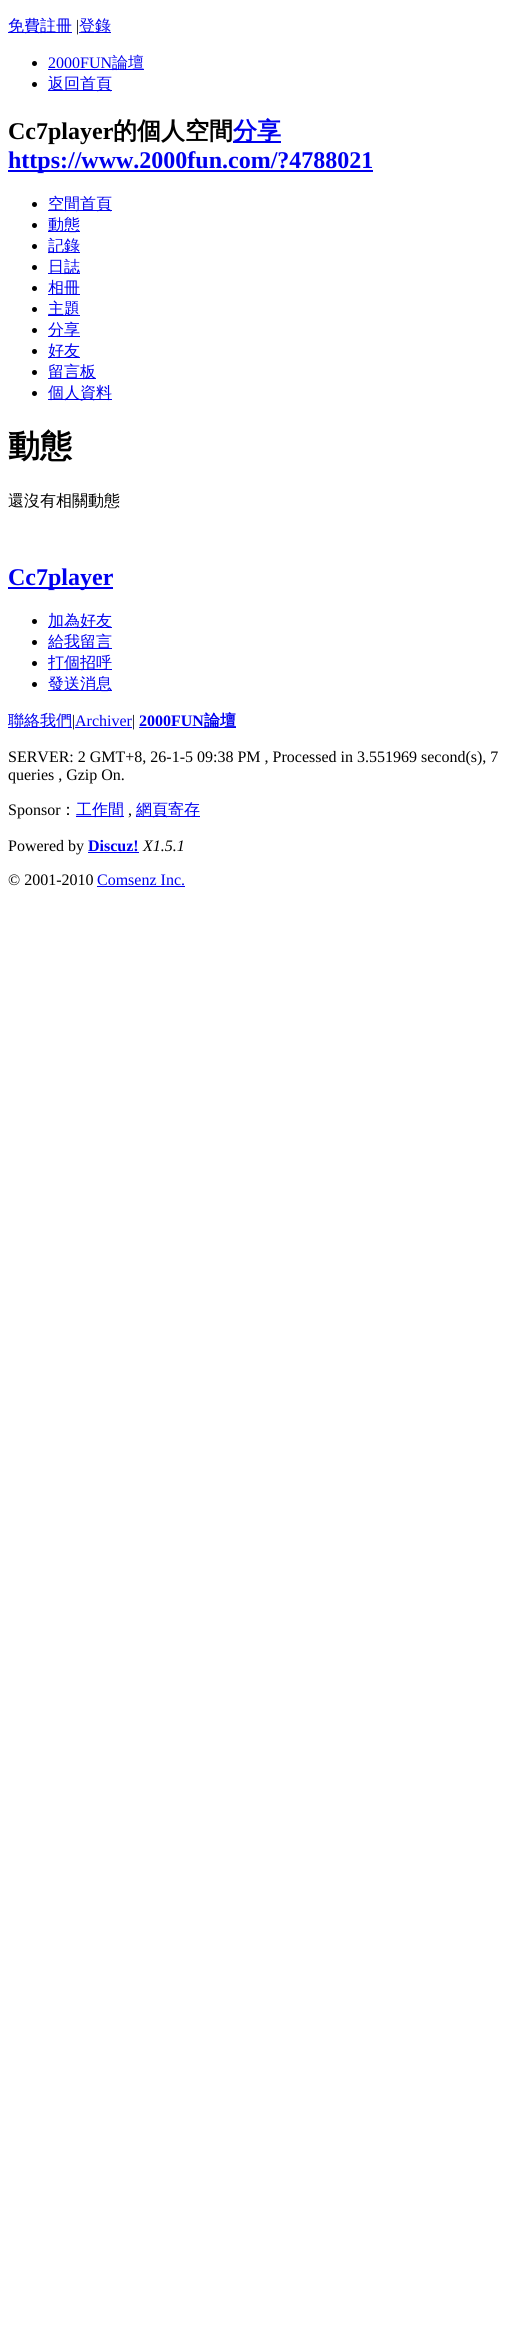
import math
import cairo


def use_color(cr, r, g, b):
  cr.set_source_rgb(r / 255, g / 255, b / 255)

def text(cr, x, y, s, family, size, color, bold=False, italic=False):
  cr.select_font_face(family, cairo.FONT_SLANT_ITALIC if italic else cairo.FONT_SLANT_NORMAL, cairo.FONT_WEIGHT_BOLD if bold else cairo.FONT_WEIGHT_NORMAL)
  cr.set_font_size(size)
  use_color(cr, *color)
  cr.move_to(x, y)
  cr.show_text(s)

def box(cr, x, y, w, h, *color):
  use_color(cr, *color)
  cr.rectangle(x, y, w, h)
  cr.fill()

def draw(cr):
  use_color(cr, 255, 255, 255)
  cr.paint()
  box(cr, 8, 32, 64, 1, 0, 0, 238)
  box(cr, 79, 32, 32, 1, 0, 0, 238)
  use_color(cr, 0, 0, 0)
  cr.arc(34.5, 63.5, 2.5, 0, 2 * math.pi)
  cr.fill()
  box(cr, 48, 69, 96, 1, 0, 0, 238)
  use_color(cr, 0, 0, 0)
  cr.arc(34.5, 84.5, 2.5, 0, 2 * math.pi)
  cr.fill()
  box(cr, 48, 90, 64, 1, 0, 0, 238)
  box(cr, 233, 141, 48, 2, 0, 0, 238)
  box(cr, 8, 170, 365, 2, 0, 0, 238)
  use_color(cr, 0, 0, 0)
  cr.arc(34.5, 204.5, 2.5, 0, 2 * math.pi)
  cr.fill()
  box(cr, 48, 210, 64, 1, 0, 0, 238)
  use_color(cr, 0, 0, 0)
  cr.arc(34.5, 225.5, 2.5, 0, 2 * math.pi)
  cr.fill()
  box(cr, 48, 231, 32, 1, 0, 0, 238)
  use_color(cr, 0, 0, 0)
  cr.arc(34.5, 246.5, 2.5, 0, 2 * math.pi)
  cr.fill()
  box(cr, 48, 252, 32, 1, 0, 0, 238)
  use_color(cr, 0, 0, 0)
  cr.arc(34.5, 267.5, 2.5, 0, 2 * math.pi)
  cr.fill()
  box(cr, 48, 273, 32, 1, 0, 0, 238)
  use_color(cr, 0, 0, 0)
  cr.arc(34.5, 288.5, 2.5, 0, 2 * math.pi)
  cr.fill()
  box(cr, 48, 294, 32, 1, 0, 0, 238)
  use_color(cr, 0, 0, 0)
  cr.arc(34.5, 309.5, 2.5, 0, 2 * math.pi)
  cr.fill()
  box(cr, 48, 315, 32, 1, 0, 0, 238)
  use_color(cr, 0, 0, 0)
  cr.arc(34.5, 330.5, 2.5, 0, 2 * math.pi)
  cr.fill()
  box(cr, 48, 336, 32, 1, 0, 0, 238)
  use_color(cr, 0, 0, 0)
  cr.arc(34.5, 351.5, 2.5, 0, 2 * math.pi)
  cr.fill()
  box(cr, 48, 357, 32, 1, 0, 0, 238)
  use_color(cr, 0, 0, 0)
  cr.arc(34.5, 372.5, 2.5, 0, 2 * math.pi)
  cr.fill()
  box(cr, 48, 378, 48, 1, 0, 0, 238)
  use_color(cr, 0, 0, 0)
  cr.arc(34.5, 393.5, 2.5, 0, 2 * math.pi)
  cr.fill()
  box(cr, 48, 399, 64, 1, 0, 0, 238)
  box(cr, 8, 587, 105, 2, 0, 0, 238)
  use_color(cr, 0, 0, 0)
  cr.arc(34.5, 621.5, 2.5, 0, 2 * math.pi)
  cr.fill()
  box(cr, 48, 627, 64, 1, 0, 0, 238)
  use_color(cr, 0, 0, 0)
  cr.arc(34.5, 642.5, 2.5, 0, 2 * math.pi)
  cr.fill()
  box(cr, 48, 648, 64, 1, 0, 0, 238)
  use_color(cr, 0, 0, 0)
  cr.arc(34.5, 663.5, 2.5, 0, 2 * math.pi)
  cr.fill()
  box(cr, 48, 669, 64, 1, 0, 0, 238)
  use_color(cr, 0, 0, 0)
  cr.arc(34.5, 684.5, 2.5, 0, 2 * math.pi)
  cr.fill()
  box(cr, 48, 690, 64, 1, 0, 0, 238)
  box(cr, 8, 727, 64, 1, 0, 0, 238)
  box(cr, 75, 727, 57, 1, 0, 0, 238)
  box(cr, 139, 727, 97, 1, 0, 0, 238)
  box(cr, 76, 816, 48, 1, 0, 0, 238)
  box(cr, 136, 816, 64, 1, 0, 0, 238)
  box(cr, 88, 852, 51, 1, 0, 0, 238)
  box(cr, 97, 886, 88, 1, 0, 0, 238)
  text(cr, 8, 31, "免費註冊", "WenQuanYi Zen Hei Medium", 16, (0, 0, 238))
  text(cr, 76, 31, "|", "Liberation Serif", 16, (0, 0, 0))
  text(cr, 79, 31, "登錄", "WenQuanYi Zen Hei Medium", 16, (0, 0, 238))
  text(cr, 48, 68, "2000FUN", "Liberation Serif", 16, (0, 0, 238))
  text(cr, 112, 68, "論壇", "WenQuanYi Zen Hei Medium", 16, (0, 0, 238))
  text(cr, 48, 89, "返回首頁", "WenQuanYi Zen Hei Medium", 16, (0, 0, 238))
  text(cr, 8, 139, "Cc7player", "Liberation Serif", 24, (0, 0, 0), bold=True)
  text(cr, 113, 139, "的個人空間", "WenQuanYi Zen Hei", 24, (0, 0, 0), bold=True)
  text(cr, 233, 139, "分享", "WenQuanYi Zen Hei", 24, (0, 0, 238), bold=True)
  text(cr, 8, 168, "https://www.2000fun.com/?4788021", "Liberation Serif", 24, (0, 0, 238), bold=True)
  text(cr, 48, 209, "空間首頁", "WenQuanYi Zen Hei Medium", 16, (0, 0, 238))
  text(cr, 48, 230, "動態", "WenQuanYi Zen Hei Medium", 16, (0, 0, 238))
  text(cr, 48, 251, "記錄", "WenQuanYi Zen Hei Medium", 16, (0, 0, 238))
  text(cr, 48, 272, "日誌", "WenQuanYi Zen Hei Medium", 16, (0, 0, 238))
  text(cr, 48, 293, "相冊", "WenQuanYi Zen Hei Medium", 16, (0, 0, 238))
  text(cr, 48, 314, "主題", "WenQuanYi Zen Hei Medium", 16, (0, 0, 238))
  text(cr, 48, 335, "分享", "WenQuanYi Zen Hei Medium", 16, (0, 0, 238))
  text(cr, 48, 356, "好友", "WenQuanYi Zen Hei Medium", 16, (0, 0, 238))
  text(cr, 48, 377, "留言板", "WenQuanYi Zen Hei Medium", 16, (0, 0, 238))
  text(cr, 48, 398, "個人資料", "WenQuanYi Zen Hei Medium", 16, (0, 0, 238))
  text(cr, 8, 457, "動態", "WenQuanYi Zen Hei", 32, (0, 0, 0), bold=True)
  text(cr, 8, 506, "還沒有相關動態", "WenQuanYi Zen Hei Medium", 16, (0, 0, 0))
  text(cr, 8, 585, "Cc7player", "Liberation Serif", 24, (0, 0, 238), bold=True)
  text(cr, 48, 626, "加為好友", "WenQuanYi Zen Hei Medium", 16, (0, 0, 238))
  text(cr, 48, 647, "給我留言", "WenQuanYi Zen Hei Medium", 16, (0, 0, 238))
  text(cr, 48, 668, "打個招呼", "WenQuanYi Zen Hei Medium", 16, (0, 0, 238))
  text(cr, 48, 689, "發送消息", "WenQuanYi Zen Hei Medium", 16, (0, 0, 238))
  text(cr, 8, 726, "聯絡我們", "WenQuanYi Zen Hei Medium", 16, (0, 0, 238))
  text(cr, 72, 726, "|", "Liberation Serif", 16, (0, 0, 0))
  text(cr, 75, 726, "Archiver", "Liberation Serif", 16, (0, 0, 238))
  text(cr, 132, 726, "|", "Liberation Serif", 16, (0, 0, 0))
  text(cr, 139, 726, "2000FUN", "Liberation Serif", 16, (0, 0, 238), bold=True)
  text(cr, 204, 726, "論壇", "WenQuanYi Zen Hei", 16, (0, 0, 238), bold=True)
  text(cr, 8, 762, "SERVER: 2 GMT+8, 26-1-5 09:38 PM , Processed in 3.551969 second(s), 7", "Liberation Serif", 16, (0, 0, 0))
  text(cr, 8, 780, "queries , Gzip On.", "Liberation Serif", 16, (0, 0, 0))
  text(cr, 8, 815, "Sponsor", "Liberation Serif", 16, (0, 0, 0))
  text(cr, 60, 815, "：", "WenQuanYi Zen Hei Medium", 16, (0, 0, 0))
  text(cr, 76, 815, "工作間", "WenQuanYi Zen Hei Medium", 16, (0, 0, 238))
  text(cr, 136, 815, "網頁寄存", "WenQuanYi Zen Hei Medium", 16, (0, 0, 238))
  text(cr, 128, 815, ",", "Liberation Serif", 16, (0, 0, 0))
  text(cr, 8, 851, "Powered by", "Liberation Serif", 16, (0, 0, 0))
  text(cr, 88, 851, "Discuz!", "Liberation Serif", 16, (0, 0, 238), bold=True)
  text(cr, 143, 851, "X1.5.1", "Liberation Serif", 16, (0, 0, 0), italic=True)
  text(cr, 8, 885, "© 2001-2010", "Liberation Serif", 16, (0, 0, 0))
  text(cr, 97, 885, "Comsenz Inc.", "Liberation Serif", 16, (0, 0, 238))


surface = cairo.ImageSurface(cairo.FORMAT_RGB24, 528, 2337)
cr = cairo.Context(surface)
options = cairo.FontOptions()
options.set_hint_metrics(cairo.HINT_METRICS_OFF)
options.set_hint_style(cairo.HINT_STYLE_NONE)
cr.set_font_options(options)
cr.set_miter_limit(4)
draw(cr)
surface.write_to_png("out.png")
